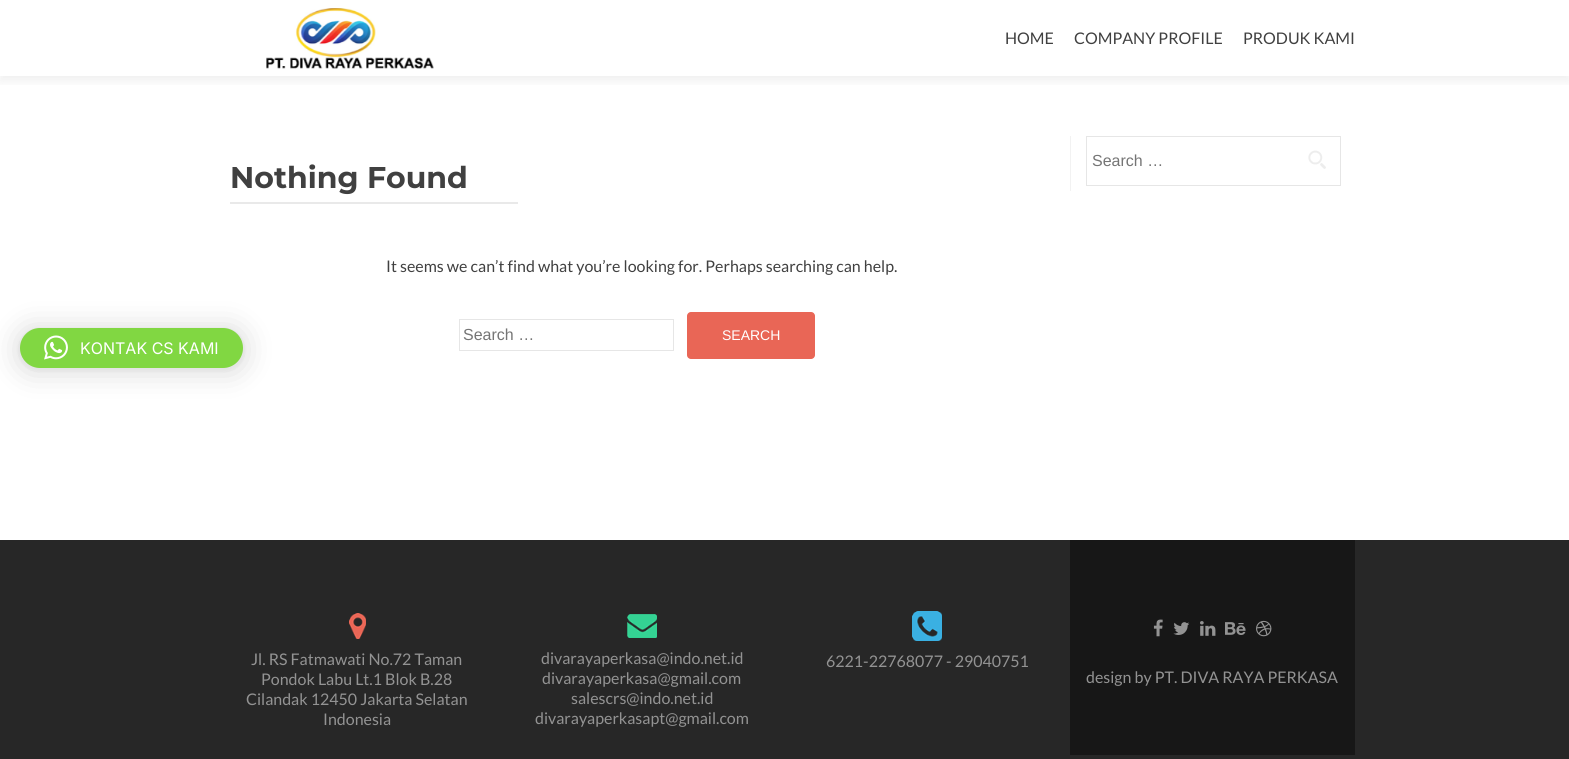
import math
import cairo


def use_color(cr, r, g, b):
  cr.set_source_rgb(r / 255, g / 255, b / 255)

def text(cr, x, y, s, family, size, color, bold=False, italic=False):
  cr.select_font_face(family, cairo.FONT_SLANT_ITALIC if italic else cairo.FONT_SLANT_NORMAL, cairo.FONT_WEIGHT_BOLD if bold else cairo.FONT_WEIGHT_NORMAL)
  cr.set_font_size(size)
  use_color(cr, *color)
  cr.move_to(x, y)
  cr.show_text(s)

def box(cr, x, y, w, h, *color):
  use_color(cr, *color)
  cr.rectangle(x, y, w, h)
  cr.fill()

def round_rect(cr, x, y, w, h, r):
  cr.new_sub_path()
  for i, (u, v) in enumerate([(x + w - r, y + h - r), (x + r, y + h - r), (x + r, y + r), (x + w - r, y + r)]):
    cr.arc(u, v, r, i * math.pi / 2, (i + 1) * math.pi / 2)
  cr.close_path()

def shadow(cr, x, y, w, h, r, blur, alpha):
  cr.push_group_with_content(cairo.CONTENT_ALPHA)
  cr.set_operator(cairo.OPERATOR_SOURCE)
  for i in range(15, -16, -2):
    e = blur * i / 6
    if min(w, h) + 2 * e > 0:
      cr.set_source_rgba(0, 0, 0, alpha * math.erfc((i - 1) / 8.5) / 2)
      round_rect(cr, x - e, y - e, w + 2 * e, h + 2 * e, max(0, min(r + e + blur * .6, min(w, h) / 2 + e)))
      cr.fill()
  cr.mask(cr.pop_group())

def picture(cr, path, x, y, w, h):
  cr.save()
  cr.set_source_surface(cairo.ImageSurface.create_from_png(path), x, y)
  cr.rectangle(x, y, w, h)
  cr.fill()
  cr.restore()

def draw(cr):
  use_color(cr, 255, 255, 255)
  cr.paint()
  cr.save()
  cr.rectangle(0, 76, 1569, 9)
  cr.clip()
  use_color(cr, 50, 50, 50)
  shadow(cr, 0, 5, 1569, 76, 0, 5.5, 0.08)
  cr.restore()
  picture(cr, "img_01.png", 266, 8, 168, 61)
  box(cr, 1070, 136, 1, 55, 242, 242, 242)
  cr.rectangle(1086.5, 136.5, 254, 49)
  use_color(cr, 230, 230, 230)
  cr.set_line_width(1)
  cr.stroke()
  picture(cr, "img_02.png", 1308, 150, 18, 19)
  box(cr, 230, 202, 288, 2, 233, 233, 233)
  cr.rectangle(459.5, 319.5, 214, 31)
  use_color(cr, 230, 230, 230)
  cr.stroke()
  use_color(cr, 233, 102, 86)
  round_rect(cr, 687, 312, 128, 47, 4)
  cr.fill()
  use_color(cr, 0, 0, 0)
  shadow(cr, 20, 330, 223, 40, 20, 16, 0.16)
  shadow(cr, 20, 329, 223, 40, 20, 3, 0.06)
  use_color(cr, 129, 215, 66)
  round_rect(cr, 20, 328, 223, 40, 20)
  cr.fill()
  picture(cr, "img_03.png", 44, 335, 24, 25)
  box(cr, 0, 540, 1569, 219, 39, 39, 39)
  picture(cr, "img_04.png", 349, 613, 17, 26)
  picture(cr, "img_05.png", 627, 614, 30, 24)
  picture(cr, "img_06.png", 912, 611, 30, 30)
  box(cr, 1070, 540, 285, 215, 23, 23, 23)
  picture(cr, "img_07.png", 1153, 619, 10, 18)
  picture(cr, "img_08.png", 1173, 622, 17, 13)
  picture(cr, "img_09.png", 1200, 621, 16, 15)
  picture(cr, "img_10.png", 1225, 622, 21, 13)
  picture(cr, "img_11.png", 1256, 620, 16, 17)
  text(cr, 1005, 44, "HOME", "Lato", 16, (64, 64, 64))
  text(cr, 1074, 44, "COMPANY PROFILE", "Lato", 16, (64, 64, 64))
  text(cr, 1243, 44, "PRODUK KAMI", "Lato", 16, (64, 64, 64))
  text(cr, 1092, 166, "Search …", "Liberation Sans", 16, (117, 117, 117))
  text(cr, 230, 188, "Nothing Found", "Montserrat Thin", 30, (64, 64, 64))
  text(cr, 386, 272, "It seems we can’t find what you’re looking for. Perhaps searching can help.", "Lato", 16, (64, 64, 64))
  text(cr, 463, 340, "Search …", "Liberation Sans", 16, (117, 117, 117))
  text(cr, 722, 340, "SEARCH", "Liberation Sans", 14, (255, 255, 255))
  text(cr, 80, 354, "KONTAK CS KAMI", "Inter", 16, (255, 255, 255))
  text(cr, 251, 665, "Jl. RS Fatmawati No.72 Taman", "Lato", 16, (147, 147, 147))
  text(cr, 261, 685, "Pondok Labu Lt.1 Blok B.28", "Lato", 16, (147, 147, 147))
  text(cr, 246, 705, "Cilandak 12450 Jakarta Selatan", "Lato", 16, (147, 147, 147))
  text(cr, 323, 725, "Indonesia", "Lato", 16, (147, 147, 147))
  text(cr, 541, 664, "divarayaperkasa@indo.net.id", "Lato", 16, (147, 147, 147))
  text(cr, 542, 684, "divarayaperkasa@gmail.com", "Lato", 16, (147, 147, 147))
  text(cr, 571, 704, "salescrs@indo.net.id", "Lato", 16, (147, 147, 147))
  text(cr, 535, 724, "divarayaperkasapt@gmail.com", "Lato", 16, (147, 147, 147))
  text(cr, 826, 667, "6221-22768077 - 29040751", "Lato", 16, (147, 147, 147))
  text(cr, 1086, 683, "design by PT. DIVA RAYA PERKASA", "Lato", 16, (147, 147, 147))


surface = cairo.ImageSurface(cairo.FORMAT_RGB24, 1569, 759)
cr = cairo.Context(surface)
options = cairo.FontOptions()
options.set_hint_metrics(cairo.HINT_METRICS_OFF)
options.set_hint_style(cairo.HINT_STYLE_NONE)
cr.set_font_options(options)
cr.set_miter_limit(4)
draw(cr)
surface.write_to_png("out.png")
